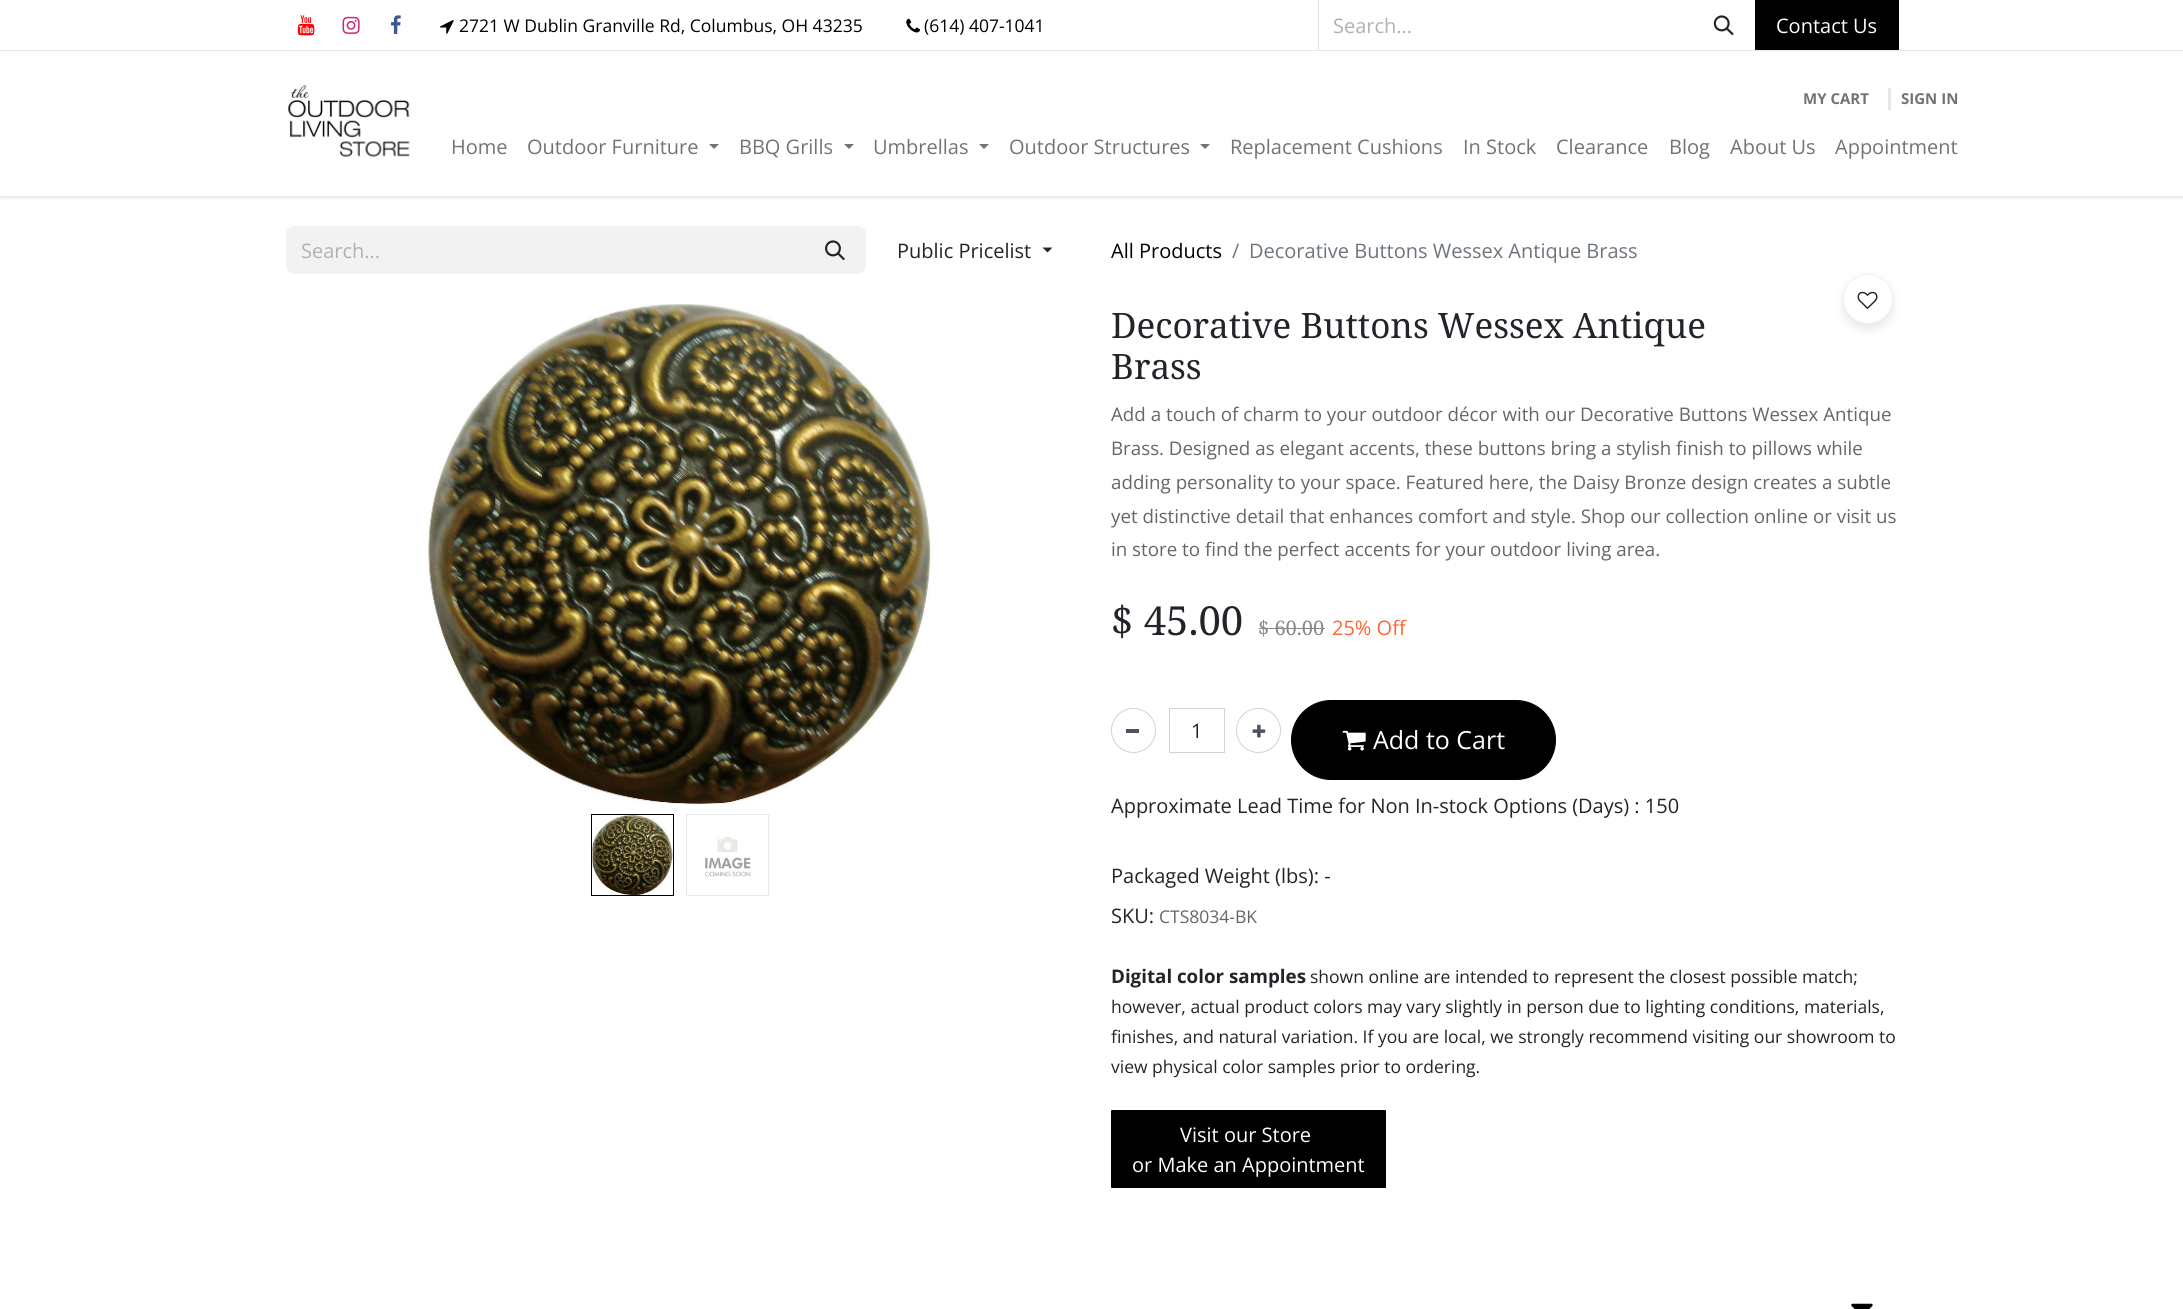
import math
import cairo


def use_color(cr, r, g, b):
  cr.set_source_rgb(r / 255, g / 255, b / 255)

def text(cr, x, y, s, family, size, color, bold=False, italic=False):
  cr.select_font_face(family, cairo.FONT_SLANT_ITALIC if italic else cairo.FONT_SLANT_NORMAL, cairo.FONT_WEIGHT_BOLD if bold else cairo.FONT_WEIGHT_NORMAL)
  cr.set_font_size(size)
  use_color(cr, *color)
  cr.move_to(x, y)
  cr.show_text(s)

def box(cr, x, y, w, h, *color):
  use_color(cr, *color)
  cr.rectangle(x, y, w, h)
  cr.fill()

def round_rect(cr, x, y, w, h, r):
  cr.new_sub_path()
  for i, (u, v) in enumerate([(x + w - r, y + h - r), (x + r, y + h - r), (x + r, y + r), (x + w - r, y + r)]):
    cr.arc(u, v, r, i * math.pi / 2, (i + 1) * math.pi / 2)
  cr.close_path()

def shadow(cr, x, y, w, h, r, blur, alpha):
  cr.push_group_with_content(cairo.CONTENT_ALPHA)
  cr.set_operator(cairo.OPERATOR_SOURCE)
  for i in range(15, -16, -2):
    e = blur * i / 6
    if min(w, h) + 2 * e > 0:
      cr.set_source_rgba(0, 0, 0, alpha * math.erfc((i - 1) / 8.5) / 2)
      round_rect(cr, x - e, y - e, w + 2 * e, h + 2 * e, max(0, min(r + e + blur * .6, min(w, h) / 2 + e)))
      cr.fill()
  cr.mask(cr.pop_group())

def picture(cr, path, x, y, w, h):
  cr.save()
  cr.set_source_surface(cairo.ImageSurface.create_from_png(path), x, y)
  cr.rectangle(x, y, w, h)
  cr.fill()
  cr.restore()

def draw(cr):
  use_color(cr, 255, 255, 255)
  cr.paint()
  cr.save()
  cr.rectangle(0, 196, 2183, 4)
  cr.clip()
  use_color(cr, 0, 0, 0)
  shadow(cr, 0, 1, 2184, 197, 0, 2, 0.1)
  cr.restore()
  box(cr, 0, 50, 2183, 1, 230, 230, 230)
  picture(cr, "img_01.png", 297, 15, 18, 21)
  picture(cr, "img_02.png", 342, 16, 18, 18)
  picture(cr, "img_03.png", 391, 15, 10, 19)
  picture(cr, "img_04.png", 440, 20, 14, 14)
  picture(cr, "img_05.png", 906, 18, 14, 15)
  box(cr, 1318, 0, 1, 50, 222, 222, 223)
  picture(cr, "img_06.png", 1713, 15, 21, 21)
  box(cr, 1755, 0, 144, 50, 0, 0, 0)
  picture(cr, "img_07.png", 288, 85, 122, 72)
  box(cr, 1888, 88, 3, 22, 230, 230, 230)
  use_color(cr, 115, 115, 115)
  cr.new_path()
  cr.move_to(709, 144)
  cr.line_to(719, 144)
  cr.line_to(714, 149)
  cr.close_path()
  cr.fill()
  cr.new_path()
  cr.move_to(844, 144)
  cr.line_to(854, 144)
  cr.line_to(849, 149)
  cr.close_path()
  cr.fill()
  cr.new_path()
  cr.move_to(979, 144)
  cr.line_to(989, 144)
  cr.line_to(984, 149)
  cr.close_path()
  cr.fill()
  cr.new_path()
  cr.move_to(1200, 144)
  cr.line_to(1210, 144)
  cr.line_to(1205, 149)
  cr.close_path()
  cr.fill()
  use_color(cr, 243, 242, 242)
  cr.new_path()
  cr.move_to(294, 226)
  cr.line_to(805, 226)
  cr.line_to(805, 274)
  cr.line_to(294, 274)
  cr.curve_to(289.5, 274, 286, 270.5, 286, 266)
  cr.line_to(286, 234)
  cr.curve_to(286, 229.5, 289.5, 226, 294, 226)
  cr.close_path()
  cr.fill()
  cr.new_path()
  cr.move_to(804.5, 226.5)
  cr.line_to(858, 226.5)
  cr.curve_to(862, 226.5, 865.5, 230, 865.5, 234)
  cr.line_to(865.5, 266)
  cr.curve_to(865.5, 270, 862, 273.5, 858, 273.5)
  cr.line_to(804.5, 273.5)
  cr.close_path()
  cr.fill_preserve()
  cr.set_line_width(1)
  cr.stroke()
  picture(cr, "img_08.png", 825, 240, 20, 21)
  use_color(cr, 33, 37, 41)
  cr.new_path()
  cr.move_to(1042.5, 247.5)
  cr.line_to(1052.5, 247.5)
  cr.line_to(1047.5, 252.5)
  cr.close_path()
  cr.fill()
  picture(cr, "img_09.png", 428, 304, 503, 500)
  cr.rectangle(591.5, 814.5, 82, 81)
  use_color(cr, 0, 0, 0)
  cr.stroke()
  picture(cr, "img_10.png", 592, 815, 81, 80)
  cr.rectangle(686.5, 814.5, 82, 81)
  use_color(cr, 231, 234, 237)
  cr.stroke()
  picture(cr, "img_11.png", 705, 837, 46, 40)
  use_color(cr, 0, 0, 0)
  shadow(cr, 1843, 279, 50, 50, 25, 5, 0.1)
  use_color(cr, 255, 255, 255)
  cr.arc(1868, 299, 24.5, 0, 2 * math.pi)
  cr.fill_preserve()
  use_color(cr, 240, 240, 240)
  cr.stroke()
  picture(cr, "img_12.png", 1857, 291, 21, 18)
  box(cr, 1259, 628, 66, 1, 136, 136, 136)
  cr.arc(1133.5, 730.5, 22, 0, 2 * math.pi)
  use_color(cr, 206, 212, 218)
  cr.stroke()
  box(cr, 1126, 729, 13, 4, 76, 84, 98)
  cr.rectangle(1169.5, 708.5, 55, 44)
  use_color(cr, 206, 212, 218)
  cr.stroke()
  cr.arc(1258.5, 730.5, 22, 0, 2 * math.pi)
  cr.stroke()
  picture(cr, "img_13.png", 1252, 724, 14, 14)
  use_color(cr, 0, 0, 0)
  round_rect(cr, 1291.5, 700.5, 264, 79, 39.5)
  cr.fill_preserve()
  cr.stroke()
  picture(cr, "img_14.png", 1342, 730, 24, 21)
  round_rect(cr, 1111.5, 1110.5, 274, 77, 0.5)
  cr.fill_preserve()
  cr.stroke()
  picture(cr, "img_15.png", 1851, 1303, 22, 6)
  text(cr, 459, 32, "2721 W Dublin Granville Rd, Columbus, OH 43235", "Open Sans", 17.5, (0, 0, 0))
  text(cr, 924, 32, "(614) 407-1041", "Open Sans", 17.5, (0, 0, 0))
  text(cr, 1333, 33, "Search...", "Open Sans", 20, (177, 177, 177))
  text(cr, 1776, 33, "Contact Us", "Open Sans", 20, (255, 255, 255))
  text(cr, 1803, 104, "MY CART", "Open Sans", 15, (115, 115, 115), bold=True)
  text(cr, 1901, 104, "SIGN IN", "Open Sans", 15, (115, 115, 115), bold=True)
  text(cr, 451, 154, "Home", "Open Sans", 20, (115, 115, 115))
  text(cr, 527, 154, "Outdoor Furniture", "Open Sans", 20, (115, 115, 115))
  text(cr, 739, 154, "BBQ Grills", "Open Sans", 20, (115, 115, 115))
  text(cr, 873, 154, "Umbrellas", "Open Sans", 20, (115, 115, 115))
  text(cr, 1009, 154, "Outdoor Structures", "Open Sans", 20, (115, 115, 115))
  text(cr, 1230, 154, "Replacement Cushions", "Open Sans", 20, (115, 115, 115))
  text(cr, 1463, 154, "In Stock", "Open Sans", 20, (115, 115, 115))
  text(cr, 1556, 154, "Clearance", "Open Sans", 20, (115, 115, 115))
  text(cr, 1669, 154, "Blog", "Open Sans", 20, (115, 115, 115))
  text(cr, 1730, 154, "About Us", "Open Sans", 20, (115, 115, 115))
  text(cr, 1835, 154, "Appointment", "Open Sans", 20, (115, 115, 115))
  text(cr, 301, 258, "Search...", "Open Sans", 20, (177, 177, 177))
  text(cr, 897, 258, "Public Pricelist", "Open Sans", 20, (33, 37, 41))
  text(cr, 1111, 258, "All Products", "Open Sans", 20, (0, 0, 0))
  text(cr, 1232, 258, "/", "Open Sans", 20, (108, 117, 125))
  text(cr, 1249, 258, "Decorative Buttons Wessex Antique Brass", "Open Sans", 20, (108, 117, 125))
  text(cr, 1111, 338, "Decorative Buttons Wessex Antique", "Noto Serif", 35, (33, 37, 41))
  text(cr, 1111, 379, "Brass", "Noto Serif", 35, (33, 37, 41))
  text(cr, 1111, 421, "Add a touch of charm to your outdoor décor with our Decorative Buttons Wessex Antique", "Open Sans", 18.75, (100, 102, 105))
  text(cr, 1111, 455, "Brass. Designed as elegant accents, these buttons bring a stylish finish to pillows while", "Open Sans", 18.75, (100, 102, 105))
  text(cr, 1111, 489, "adding personality to your space. Featured here, the Daisy Bronze design creates a subtle", "Open Sans", 18.75, (100, 102, 105))
  text(cr, 1111, 523, "yet distinctive detail that enhances comfort and style. Shop our collection online or visit us", "Open Sans", 18.75, (100, 102, 105))
  text(cr, 1111, 556, "in store to find the perfect accents for your outdoor living area.", "Open Sans", 18.75, (100, 102, 105))
  text(cr, 1111, 635, "$ 45.00", "Noto Serif", 40, (33, 37, 41))
  text(cr, 1258, 635, "$ 60.00", "Noto Serif", 20, (136, 136, 136))
  text(cr, 1332, 635, "25% Off", "Open Sans", 20, (255, 100, 53))
  text(cr, 1191, 738, "1", "Open Sans", 20, (33, 37, 41))
  text(cr, 1373, 749, "Add to Cart", "Open Sans", 25, (255, 255, 255))
  text(cr, 1111, 813, "Approximate Lead Time for Non In-stock Options (Days) : 150", "Open Sans", 20, (33, 37, 41))
  text(cr, 1111, 883, "Packaged Weight (lbs): -", "Open Sans", 20, (33, 37, 41))
  text(cr, 1111, 923, "SKU:", "Open Sans", 20, (33, 37, 41))
  text(cr, 1159, 923, "CTS8034-BK", "Open Sans", 17.5, (100, 102, 105))
  text(cr, 1111, 983, "Digital color samples", "Open Sans", 18.75, (33, 37, 41), bold=True)
  text(cr, 1310, 983, "shown online are intended to represent the closest possible match;", "Open Sans", 17.5, (33, 37, 41))
  text(cr, 1111, 1013, "however, actual product colors may vary slightly in person due to lighting conditions, materials,", "Open Sans", 17.5, (33, 37, 41))
  text(cr, 1111, 1043, "finishes, and natural variation. If you are local, we strongly recommend visiting our showroom to", "Open Sans", 17.5, (33, 37, 41))
  text(cr, 1111, 1073, "view physical color samples prior to ordering.", "Open Sans", 17.5, (33, 37, 41))
  text(cr, 1180, 1142, "Visit our Store", "Open Sans", 20, (255, 255, 255))
  text(cr, 1132, 1172, "or Make an Appointment", "Open Sans", 20, (255, 255, 255))


surface = cairo.ImageSurface(cairo.FORMAT_RGB24, 2183, 1309)
cr = cairo.Context(surface)
options = cairo.FontOptions()
options.set_hint_metrics(cairo.HINT_METRICS_OFF)
options.set_hint_style(cairo.HINT_STYLE_NONE)
cr.set_font_options(options)
cr.set_miter_limit(4)
draw(cr)
surface.write_to_png("out.png")
